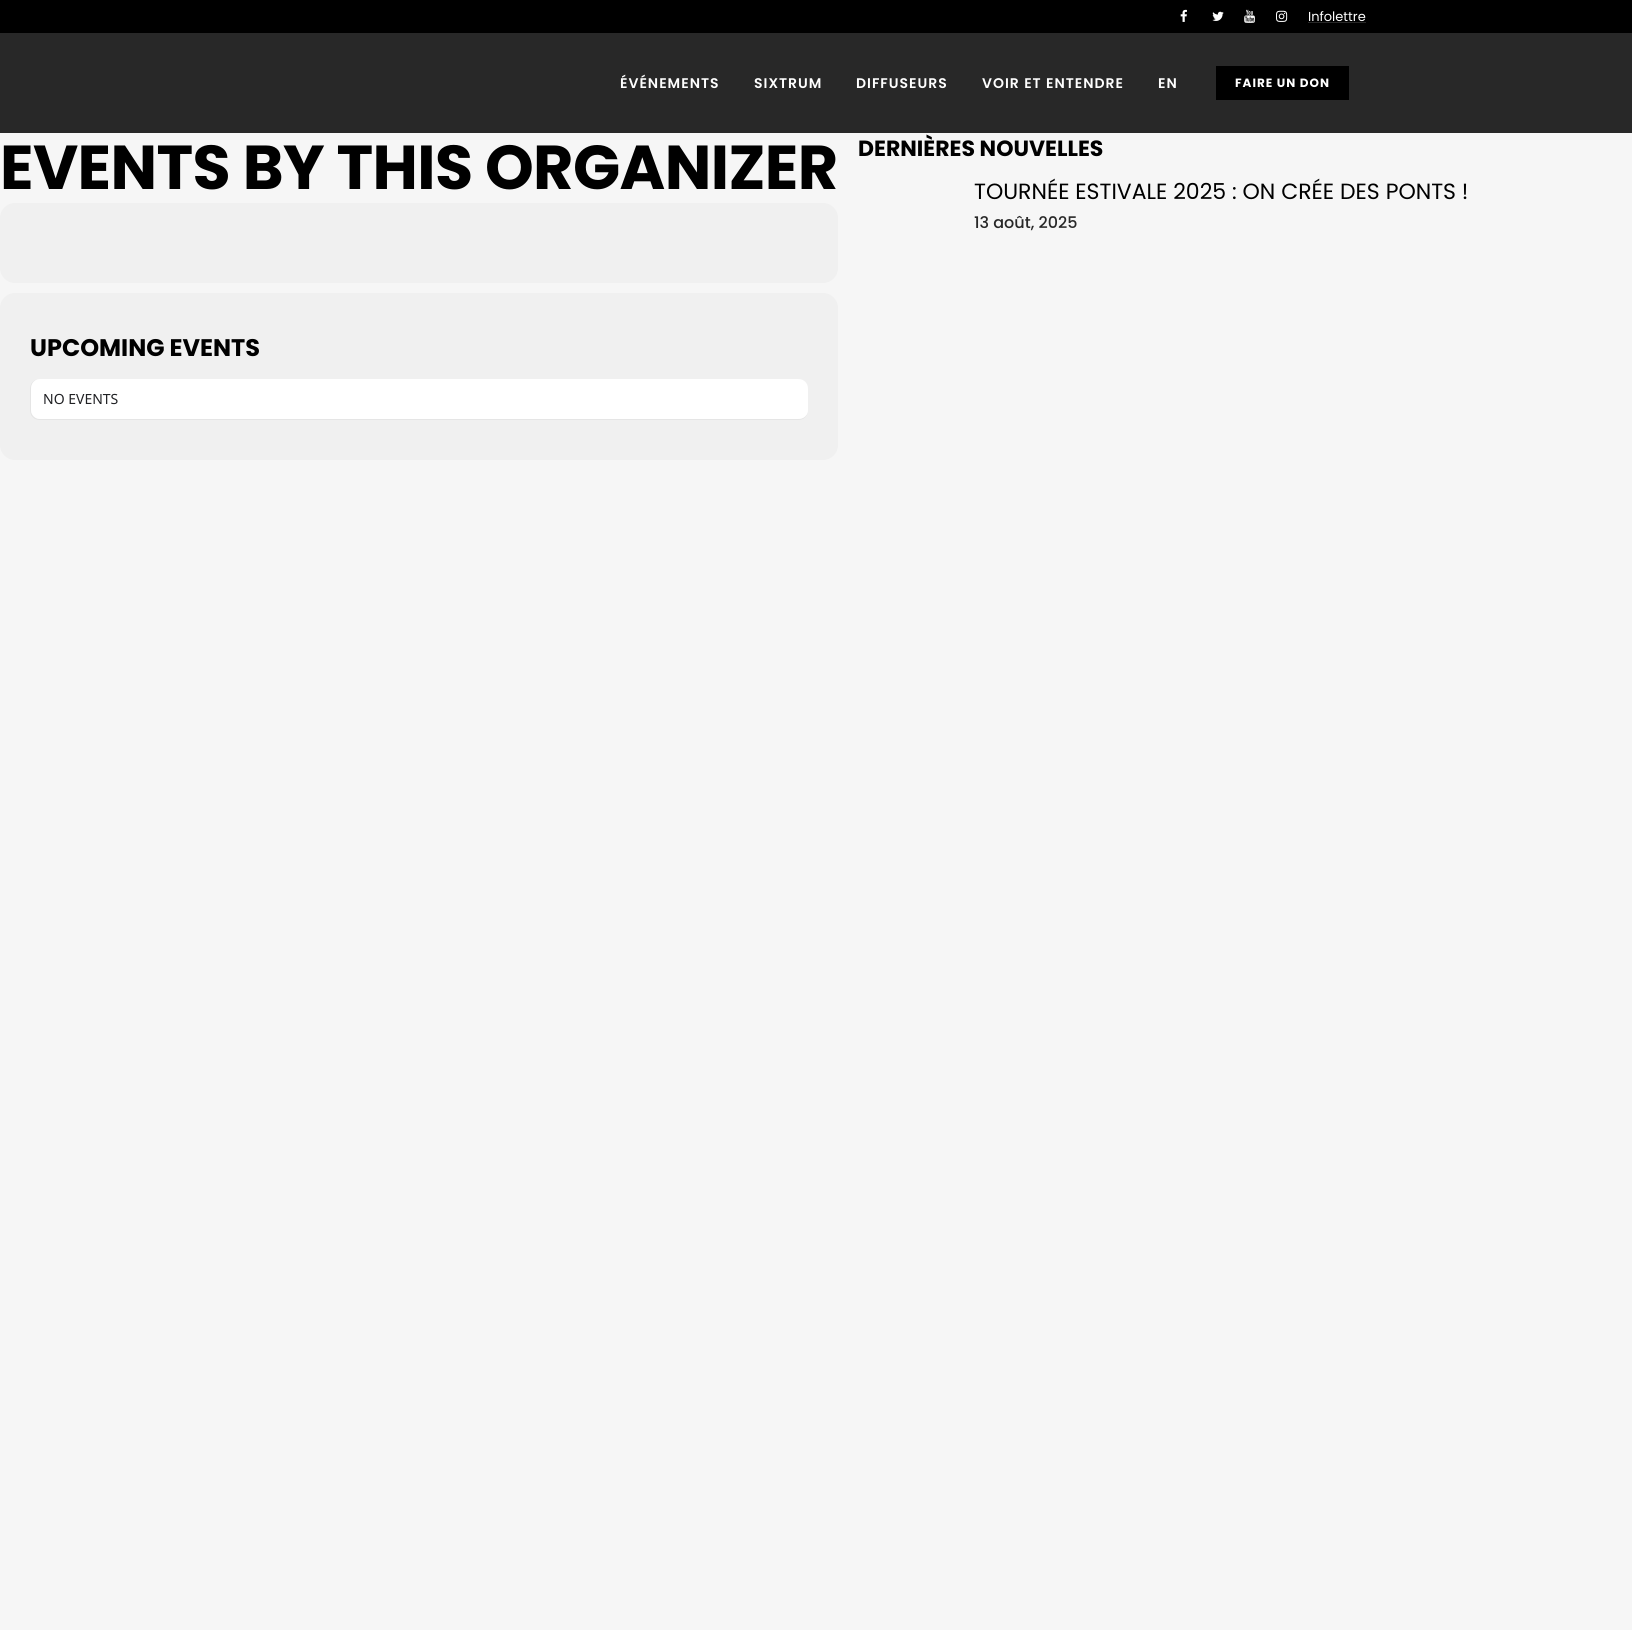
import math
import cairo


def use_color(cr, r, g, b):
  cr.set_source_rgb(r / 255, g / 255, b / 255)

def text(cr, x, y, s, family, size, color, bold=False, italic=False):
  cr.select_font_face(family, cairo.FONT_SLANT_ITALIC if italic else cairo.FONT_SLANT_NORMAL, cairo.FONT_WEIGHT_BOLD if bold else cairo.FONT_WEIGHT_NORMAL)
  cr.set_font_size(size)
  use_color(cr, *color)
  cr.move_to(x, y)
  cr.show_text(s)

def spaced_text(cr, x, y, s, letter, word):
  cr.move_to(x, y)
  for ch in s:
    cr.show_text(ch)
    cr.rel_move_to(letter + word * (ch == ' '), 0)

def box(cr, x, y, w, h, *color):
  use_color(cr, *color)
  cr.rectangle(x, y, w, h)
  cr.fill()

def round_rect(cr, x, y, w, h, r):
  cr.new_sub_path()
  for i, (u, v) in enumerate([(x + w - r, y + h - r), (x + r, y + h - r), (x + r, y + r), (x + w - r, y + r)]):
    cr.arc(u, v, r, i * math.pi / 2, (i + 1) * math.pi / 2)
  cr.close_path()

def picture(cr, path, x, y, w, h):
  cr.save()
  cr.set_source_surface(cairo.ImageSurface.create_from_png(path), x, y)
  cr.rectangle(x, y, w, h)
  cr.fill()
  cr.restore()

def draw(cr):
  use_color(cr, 246, 246, 246)
  cr.paint()
  box(cr, 0, 0, 1632, 33, 0, 0, 0)
  picture(cr, "img_01.png", 1180, 9, 7, 13)
  picture(cr, "img_02.png", 1212, 11, 12, 10)
  picture(cr, "img_03.png", 1244, 9, 11, 14)
  picture(cr, "img_04.png", 1276, 10, 12, 12)
  box(cr, 1308, 22, 58, 1, 40, 40, 40)
  box(cr, 0, 33, 1632, 100, 40, 40, 40)
  box(cr, 1216, 66, 133, 34, 0, 0, 0)
  use_color(cr, 240, 240, 240)
  round_rect(cr, 0, 203, 838, 80, 15)
  cr.fill()
  round_rect(cr, 0, 293, 838, 167, 15)
  cr.fill()
  use_color(cr, 229, 229, 229)
  cr.set_fill_rule(cairo.FILL_RULE_EVEN_ODD)
  cr.new_path()
  cr.move_to(40, 379)
  cr.line_to(798, 379)
  cr.curve_to(804, 379, 808, 383, 808, 389)
  cr.line_to(808, 410)
  cr.curve_to(808, 416, 804, 420, 798, 420)
  cr.line_to(40, 420)
  cr.curve_to(34, 420, 30, 416, 30, 410)
  cr.line_to(30, 389)
  cr.curve_to(30, 383, 34, 379, 40, 379)
  cr.close_path()
  cr.move_to(40, 379)
  cr.line_to(798, 379)
  cr.curve_to(804, 379, 808, 383, 808, 389)
  cr.line_to(808, 410)
  cr.curve_to(808, 415, 804, 419, 798, 419)
  cr.line_to(40, 419)
  cr.curve_to(35, 419, 31, 415, 31, 410)
  cr.line_to(31, 389)
  cr.curve_to(31, 383, 35, 379, 40, 379)
  cr.close_path()
  cr.fill()
  use_color(cr, 255, 255, 255)
  cr.set_fill_rule(cairo.FILL_RULE_WINDING)
  cr.new_path()
  cr.move_to(40, 379)
  cr.curve_to(35, 379, 31, 383, 31, 389)
  cr.line_to(31, 410)
  cr.curve_to(31, 415, 35, 419, 40, 419)
  cr.line_to(798, 419)
  cr.curve_to(804, 419, 808, 415, 808, 410)
  cr.line_to(808, 389)
  cr.curve_to(808, 383, 804, 379, 798, 379)
  cr.close_path()
  cr.fill()
  text(cr, 1308, 21, "Infolettre", "Poppins", 13, (255, 255, 255))
  cr.select_font_face("Poppins SemiBold")
  cr.set_font_size(14)
  spaced_text(cr, 620, 88, "ÉVÉNEMENTS", 1, 0)
  spaced_text(cr, 754, 88, "SIXTRUM", 1, 0)
  spaced_text(cr, 856, 88, "DIFFUSEURS", 1, 0)
  spaced_text(cr, 982, 88, "VOIR ET ENTENDRE", 1, 0)
  spaced_text(cr, 1158, 88, "EN", 1, 0)
  cr.select_font_face("Poppins", cairo.FONT_SLANT_NORMAL, cairo.FONT_WEIGHT_BOLD)
  cr.set_font_size(12)
  spaced_text(cr, 1235, 87, "FAIRE UN DON", 1, 0)
  cr.set_font_size(62)
  use_color(cr, 0, 0, 0)
  spaced_text(cr, 0, 189, "EVENTS BY THIS ORGANIZER", -0.6, 0)
  text(cr, 30, 356, "UPCOMING EVENTS", "Poppins", 24, (0, 0, 0), bold=True)
  text(cr, 43, 404, "NO EVENTS", "Noto Sans", 14, (32, 33, 36))
  text(cr, 858, 156, "DERNIÈRES NOUVELLES", "Poppins", 22, (0, 0, 0), bold=True)
  text(cr, 974, 199, "TOURNÉE ESTIVALE 2025 : ON CRÉE DES PONTS !", "Poppins", 22, (0, 0, 0))
  text(cr, 974, 228, "13 août, 2025", "Poppins Medium", 16, (40, 40, 40))


surface = cairo.ImageSurface(cairo.FORMAT_RGB24, 1632, 1630)
cr = cairo.Context(surface)
options = cairo.FontOptions()
options.set_hint_metrics(cairo.HINT_METRICS_OFF)
options.set_hint_style(cairo.HINT_STYLE_NONE)
cr.set_font_options(options)
cr.set_miter_limit(4)
draw(cr)
surface.write_to_png("out.png")
